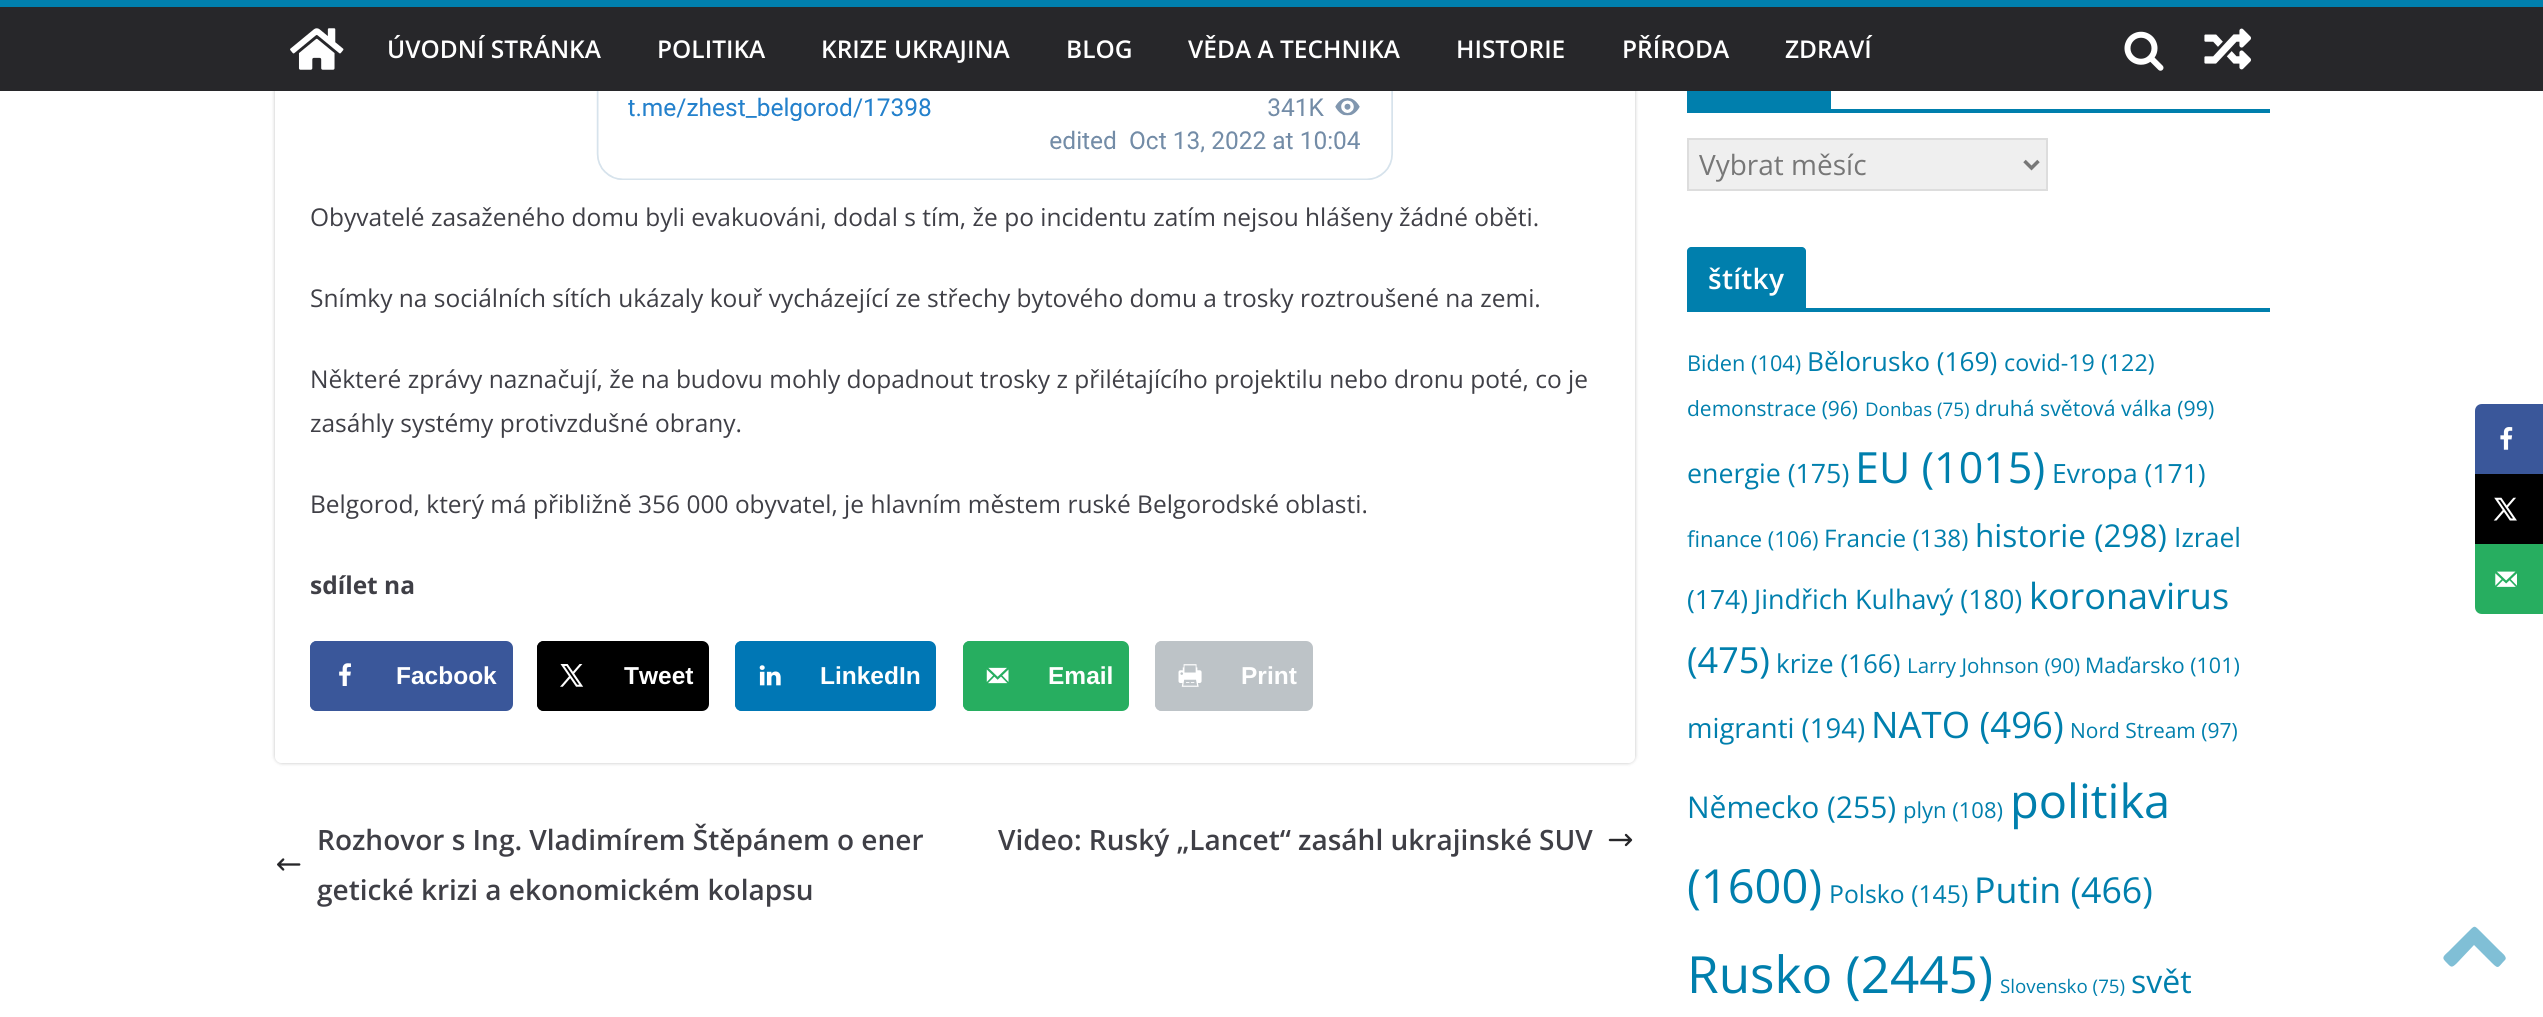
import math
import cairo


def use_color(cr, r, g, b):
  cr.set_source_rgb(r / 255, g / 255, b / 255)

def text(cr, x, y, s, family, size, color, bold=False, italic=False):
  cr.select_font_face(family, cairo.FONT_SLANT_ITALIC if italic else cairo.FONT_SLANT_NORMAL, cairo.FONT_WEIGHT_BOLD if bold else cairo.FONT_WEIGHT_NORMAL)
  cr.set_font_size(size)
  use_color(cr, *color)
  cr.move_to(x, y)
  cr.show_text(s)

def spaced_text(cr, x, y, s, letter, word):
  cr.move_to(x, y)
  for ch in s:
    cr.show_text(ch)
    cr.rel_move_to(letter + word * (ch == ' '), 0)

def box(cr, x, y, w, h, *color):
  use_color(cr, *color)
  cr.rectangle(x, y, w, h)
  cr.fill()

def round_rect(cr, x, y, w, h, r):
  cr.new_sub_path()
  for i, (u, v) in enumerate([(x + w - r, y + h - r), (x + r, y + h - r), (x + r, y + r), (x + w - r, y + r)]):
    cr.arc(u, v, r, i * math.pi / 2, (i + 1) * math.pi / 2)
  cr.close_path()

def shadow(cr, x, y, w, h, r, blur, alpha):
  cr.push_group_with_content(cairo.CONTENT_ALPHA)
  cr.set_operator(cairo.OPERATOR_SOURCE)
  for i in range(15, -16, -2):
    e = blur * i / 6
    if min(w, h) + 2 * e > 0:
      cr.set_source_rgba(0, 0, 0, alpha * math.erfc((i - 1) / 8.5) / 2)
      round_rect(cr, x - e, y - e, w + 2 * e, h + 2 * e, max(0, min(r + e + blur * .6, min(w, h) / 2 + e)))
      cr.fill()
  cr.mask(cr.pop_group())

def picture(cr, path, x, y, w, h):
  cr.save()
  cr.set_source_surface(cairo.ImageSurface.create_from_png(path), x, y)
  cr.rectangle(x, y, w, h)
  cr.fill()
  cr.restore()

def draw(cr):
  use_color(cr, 255, 255, 255)
  cr.paint()
  cr.save()
  cr.set_fill_rule(cairo.FILL_RULE_EVEN_ODD)
  cr.new_path()
  cr.move_to(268, 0)
  cr.line_to(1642, 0)
  cr.line_to(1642, 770)
  cr.line_to(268, 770)
  cr.close_path()
  cr.move_to(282, -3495)
  cr.line_to(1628, -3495)
  cr.curve_to(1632, -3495, 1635, -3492, 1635, -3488)
  cr.line_to(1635, 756)
  cr.curve_to(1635, 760, 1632, 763, 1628, 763)
  cr.line_to(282, 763)
  cr.curve_to(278, 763, 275, 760, 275, 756)
  cr.line_to(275, -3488)
  cr.curve_to(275, -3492, 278, -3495, 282, -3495)
  cr.close_path()
  cr.clip()
  use_color(cr, 0, 0, 0)
  shadow(cr, 275, -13, 1360, 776, 7, 2, 0.24)
  cr.restore()
  box(cr, 0, 7, 2543, 84, 39, 39, 42)
  box(cr, 0, 0, 2543, 7, 0, 127, 173)
  picture(cr, "img_01.png", 290, 28, 54, 42)
  picture(cr, "img_02.png", 2124, 31, 40, 40)
  picture(cr, "img_03.png", 2204, 28, 47, 42)
  picture(cr, "img_04.png", 596, 91, 797, 89)
  use_color(cr, 58, 87, 154)
  round_rect(cr, 312, 643, 199, 66, 5)
  cr.fill_preserve()
  cr.set_line_width(4)
  cr.stroke()
  cr.new_path()
  cr.move_to(317, 643)
  cr.line_to(378, 643)
  cr.line_to(378, 709)
  cr.line_to(317, 709)
  cr.curve_to(314, 709, 312, 707, 312, 704)
  cr.line_to(312, 648)
  cr.curve_to(312, 645, 314, 643, 317, 643)
  cr.close_path()
  cr.fill_preserve()
  cr.stroke()
  picture(cr, "img_05.png", 339, 663, 12, 23)
  use_color(cr, 0, 0, 0)
  round_rect(cr, 539, 643, 168, 66, 5)
  cr.fill_preserve()
  cr.stroke()
  cr.new_path()
  cr.move_to(544, 643)
  cr.line_to(605, 643)
  cr.line_to(605, 709)
  cr.line_to(544, 709)
  cr.curve_to(541, 709, 539, 707, 539, 704)
  cr.line_to(539, 648)
  cr.curve_to(539, 645, 541, 643, 544, 643)
  cr.close_path()
  cr.fill_preserve()
  cr.stroke()
  picture(cr, "img_06.png", 560, 664, 24, 23)
  use_color(cr, 0, 119, 181)
  round_rect(cr, 737, 643, 197, 66, 5)
  cr.fill_preserve()
  cr.stroke()
  cr.new_path()
  cr.move_to(742, 643)
  cr.line_to(803, 643)
  cr.line_to(803, 709)
  cr.line_to(742, 709)
  cr.curve_to(739, 709, 737, 707, 737, 704)
  cr.line_to(737, 648)
  cr.curve_to(737, 645, 739, 643, 742, 643)
  cr.close_path()
  cr.fill_preserve()
  cr.stroke()
  picture(cr, "img_07.png", 759, 665, 22, 21)
  use_color(cr, 39, 174, 96)
  round_rect(cr, 965, 643, 162, 66, 5)
  cr.fill_preserve()
  cr.stroke()
  cr.new_path()
  cr.move_to(970, 643)
  cr.line_to(1031, 643)
  cr.line_to(1031, 709)
  cr.line_to(970, 709)
  cr.curve_to(967, 709, 965, 707, 965, 704)
  cr.line_to(965, 648)
  cr.curve_to(965, 645, 967, 643, 970, 643)
  cr.close_path()
  cr.fill_preserve()
  cr.stroke()
  picture(cr, "img_08.png", 986, 667, 23, 17)
  use_color(cr, 189, 195, 199)
  round_rect(cr, 1157, 643, 154, 66, 5)
  cr.fill_preserve()
  cr.stroke()
  cr.new_path()
  cr.move_to(1162, 643)
  cr.line_to(1223, 643)
  cr.line_to(1223, 709)
  cr.line_to(1162, 709)
  cr.curve_to(1159, 709, 1157, 707, 1157, 704)
  cr.line_to(1157, 648)
  cr.curve_to(1157, 645, 1159, 643, 1162, 643)
  cr.close_path()
  cr.fill_preserve()
  cr.stroke()
  picture(cr, "img_09.png", 1178, 664, 24, 23)
  picture(cr, "img_10.png", 277, 858, 24, 13)
  picture(cr, "img_11.png", 1608, 833, 25, 14)
  box(cr, 1687, 109, 583, 4, 0, 127, 173)
  box(cr, 1687, 91, 144, 18, 0, 127, 173)
  use_color(cr, 239, 239, 239)
  cr.rectangle(1688, 139, 359, 51)
  cr.fill_preserve()
  use_color(cr, 221, 221, 221)
  cr.set_line_width(2)
  cr.stroke()
  cr.new_path()
  cr.move_to(2024.5, 161)
  cr.line_to(2031.5, 168)
  cr.line_to(2038.5, 161)
  use_color(cr, 119, 119, 119)
  cr.set_line_width(3.5)
  cr.stroke()
  box(cr, 1687, 308, 583, 4, 0, 127, 173)
  cr.new_path()
  cr.move_to(1691, 247)
  cr.line_to(1802, 247)
  cr.curve_to(1804, 247, 1806, 249, 1806, 251)
  cr.line_to(1806, 308)
  cr.line_to(1687, 308)
  cr.line_to(1687, 251)
  cr.curve_to(1687, 249, 1689, 247, 1691, 247)
  cr.close_path()
  cr.fill()
  use_color(cr, 128, 191, 214)
  cr.new_path()
  cr.move_to(2505, 960)
  cr.curve_to(2498, 967, 2499, 970, 2492, 963)
  cr.line_to(2474, 945)
  cr.line_to(2457, 963)
  cr.curve_to(2451, 969, 2451, 967, 2445, 961)
  cr.curve_to(2441, 957, 2445, 955, 2449, 951)
  cr.line_to(2468, 932)
  cr.curve_to(2475, 925, 2474, 925, 2481, 932)
  cr.line_to(2500, 951)
  cr.curve_to(2501, 952, 2508, 957, 2505, 960)
  cr.close_path()
  cr.fill()
  use_color(cr, 58, 87, 154)
  cr.new_path()
  cr.move_to(2482, 406)
  cr.line_to(2543, 406)
  cr.line_to(2543, 472)
  cr.line_to(2477, 472)
  cr.line_to(2477, 411)
  cr.curve_to(2477, 408, 2479, 406, 2482, 406)
  cr.close_path()
  cr.fill_preserve()
  cr.set_line_width(4)
  cr.stroke()
  picture(cr, "img_12.png", 2500, 427, 13, 23)
  box(cr, 2475, 474, 68, 70, 0, 0, 0)
  picture(cr, "img_13.png", 2493, 497, 24, 24)
  use_color(cr, 39, 174, 96)
  cr.new_path()
  cr.move_to(2477, 546)
  cr.line_to(2543, 546)
  cr.line_to(2543, 612)
  cr.line_to(2482, 612)
  cr.curve_to(2479, 612, 2477, 610, 2477, 607)
  cr.close_path()
  cr.fill_preserve()
  cr.stroke()
  picture(cr, "img_14.png", 2495, 571, 22, 16)
  text(cr, 387, 58, "ÚVODNÍ STRÁNKA", "Open Sans SemiBold", 24.5, (255, 255, 255))
  text(cr, 657, 58, "POLITIKA", "Open Sans SemiBold", 24.5, (255, 255, 255))
  text(cr, 821, 58, "KRIZE UKRAJINA", "Open Sans SemiBold", 24.5, (255, 255, 255))
  text(cr, 1066, 58, "BLOG", "Open Sans SemiBold", 24.5, (255, 255, 255))
  text(cr, 1188, 58, "VĚDA A TECHNIKA", "Open Sans SemiBold", 24.5, (255, 255, 255))
  text(cr, 1456, 58, "HISTORIE", "Open Sans SemiBold", 24.5, (255, 255, 255))
  text(cr, 1622, 58, "PŘÍRODA", "Open Sans SemiBold", 24.5, (255, 255, 255))
  text(cr, 1785, 58, "ZDRAVÍ", "Open Sans SemiBold", 24.5, (255, 255, 255))
  text(cr, 310, 226, "Obyvatelé zasaženého domu byli evakuováni, dodal s tím, že po incidentu zatím nejsou hlášeny žádné oběti.", "Open Sans", 24.5, (63, 63, 70))
  text(cr, 310, 307, "Snímky na sociálních sítích ukázaly kouř vycházející ze střechy bytového domu a trosky roztroušené na zemi.", "Open Sans", 24.5, (63, 63, 70))
  text(cr, 310, 388, "Některé zprávy naznačují, že na budovu mohly dopadnout trosky z přilétajícího projektilu nebo dronu poté, co je", "Open Sans", 24.5, (63, 63, 70))
  text(cr, 310, 432, "zasáhly systémy protivzdušné obrany.", "Open Sans", 24.5, (63, 63, 70))
  text(cr, 310, 513, "Belgorod, který má přibližně 356 000 obyvatel, je hlavním městem ruské Belgorodské oblasti.", "Open Sans", 24.5, (63, 63, 70))
  text(cr, 310, 594, "sdílet na", "Open Sans", 24.5, (63, 63, 70), bold=True)
  text(cr, 396, 684, "Facbook", "Liberation Sans", 24.5, (255, 255, 255), bold=True)
  text(cr, 624, 684, "Tweet", "Liberation Sans", 24.5, (255, 255, 255), bold=True)
  text(cr, 820, 684, "LinkedIn", "Liberation Sans", 24.5, (255, 255, 255), bold=True)
  text(cr, 1048, 684, "Email", "Liberation Sans", 24.5, (255, 255, 255), bold=True)
  text(cr, 1241, 684, "Print", "Liberation Sans", 24.5, (255, 255, 255), bold=True)
  text(cr, 317, 850, "Rozhovor s Ing. Vladimírem Štěpánem o ener", "Open Sans SemiBold", 28, (63, 63, 70))
  text(cr, 317, 900, "getické krizi a ekonomickém kolapsu", "Open Sans SemiBold", 28, (63, 63, 70))
  text(cr, 998, 850, "Video: Ruský „Lancet“ zasáhl ukrajinské SUV", "Open Sans SemiBold", 28, (63, 63, 70))
  text(cr, 1699, 175, "Vybrat měsíc", "Open Sans", 28, (119, 119, 119))
  cr.select_font_face("Open Sans SemiBold")
  use_color(cr, 255, 255, 255)
  spaced_text(cr, 1708, 289, "štítky", 0.25, 0)
  text(cr, 1687, 371, "Biden (104)", "Open Sans", 21.75, (0, 127, 173))
  text(cr, 1807, 371, "Bělorusko (169)", "Open Sans", 26.25, (0, 127, 173))
  text(cr, 2004, 371, "covid-19 (122)", "Open Sans", 23.25, (0, 127, 173))
  text(cr, 1687, 416, "demonstrace (96)", "Open Sans", 21, (0, 127, 173))
  text(cr, 1865, 416, "Donbas (75)", "Open Sans", 18.75, (0, 127, 173))
  text(cr, 1975, 416, "druhá světová válka (99)", "Open Sans", 21.25, (0, 127, 173))
  text(cr, 1687, 483, "energie (175)", "Open Sans", 26.75, (0, 127, 173))
  text(cr, 1855, 483, "EU (1015)", "Open Sans", 43, (0, 127, 173))
  text(cr, 2052, 483, "Evropa (171)", "Open Sans", 26.5, (0, 127, 173))
  text(cr, 1687, 547, "finance (106)", "Open Sans", 22, (0, 127, 173))
  text(cr, 1824, 547, "Francie (138)", "Open Sans", 24.25, (0, 127, 173))
  text(cr, 1975, 547, "historie (298)", "Open Sans", 31.5, (0, 127, 173))
  text(cr, 2174, 547, "Izrael", "Open Sans", 26.5, (0, 127, 173))
  text(cr, 1687, 609, "(174)", "Open Sans", 26.5, (0, 127, 173))
  text(cr, 1754, 609, "Jindřich Kulhavý (180)", "Open Sans", 26.9, (0, 127, 173))
  text(cr, 2029, 609, "koronavirus", "Open Sans", 36, (0, 127, 173))
  text(cr, 1687, 673, "(475)", "Open Sans", 36, (0, 127, 173))
  text(cr, 1776, 673, "krize (166)", "Open Sans", 26, (0, 127, 173))
  text(cr, 1907, 673, "Larry Johnson (90)", "Open Sans", 20.5, (0, 127, 173))
  text(cr, 2085, 673, "Maďarsko (101)", "Open Sans", 21.5, (0, 127, 173))
  text(cr, 1687, 738, "migranti (194)", "Open Sans", 27.5, (0, 127, 173))
  text(cr, 1871, 738, "NATO (496)", "Open Sans", 36.5, (0, 127, 173))
  text(cr, 2070, 738, "Nord Stream (97)", "Open Sans", 21, (0, 127, 173))
  text(cr, 1687, 818, "Německo (255)", "Open Sans", 30, (0, 127, 173))
  text(cr, 1903, 818, "plyn (108)", "Open Sans", 22, (0, 127, 173))
  text(cr, 2010, 818, "politika", "Open Sans", 47, (0, 127, 173))
  text(cr, 1687, 903, "(1600)", "Open Sans", 47, (0, 127, 173))
  text(cr, 1829, 903, "Polsko (145)", "Open Sans", 24.75, (0, 127, 173))
  text(cr, 1974, 903, "Putin (466)", "Open Sans", 35.75, (0, 127, 173))
  text(cr, 1687, 993, "Rusko (2445)", "Open Sans", 51.25, (0, 127, 173))
  text(cr, 2000, 993, "Slovensko (75)", "Open Sans", 18.75, (0, 127, 173))
  text(cr, 2131, 993, "svět", "Open Sans", 32, (0, 127, 173))


surface = cairo.ImageSurface(cairo.FORMAT_RGB24, 2543, 1017)
cr = cairo.Context(surface)
options = cairo.FontOptions()
options.set_hint_metrics(cairo.HINT_METRICS_OFF)
options.set_hint_style(cairo.HINT_STYLE_NONE)
cr.set_font_options(options)
cr.set_miter_limit(4)
draw(cr)
surface.write_to_png("out.png")
